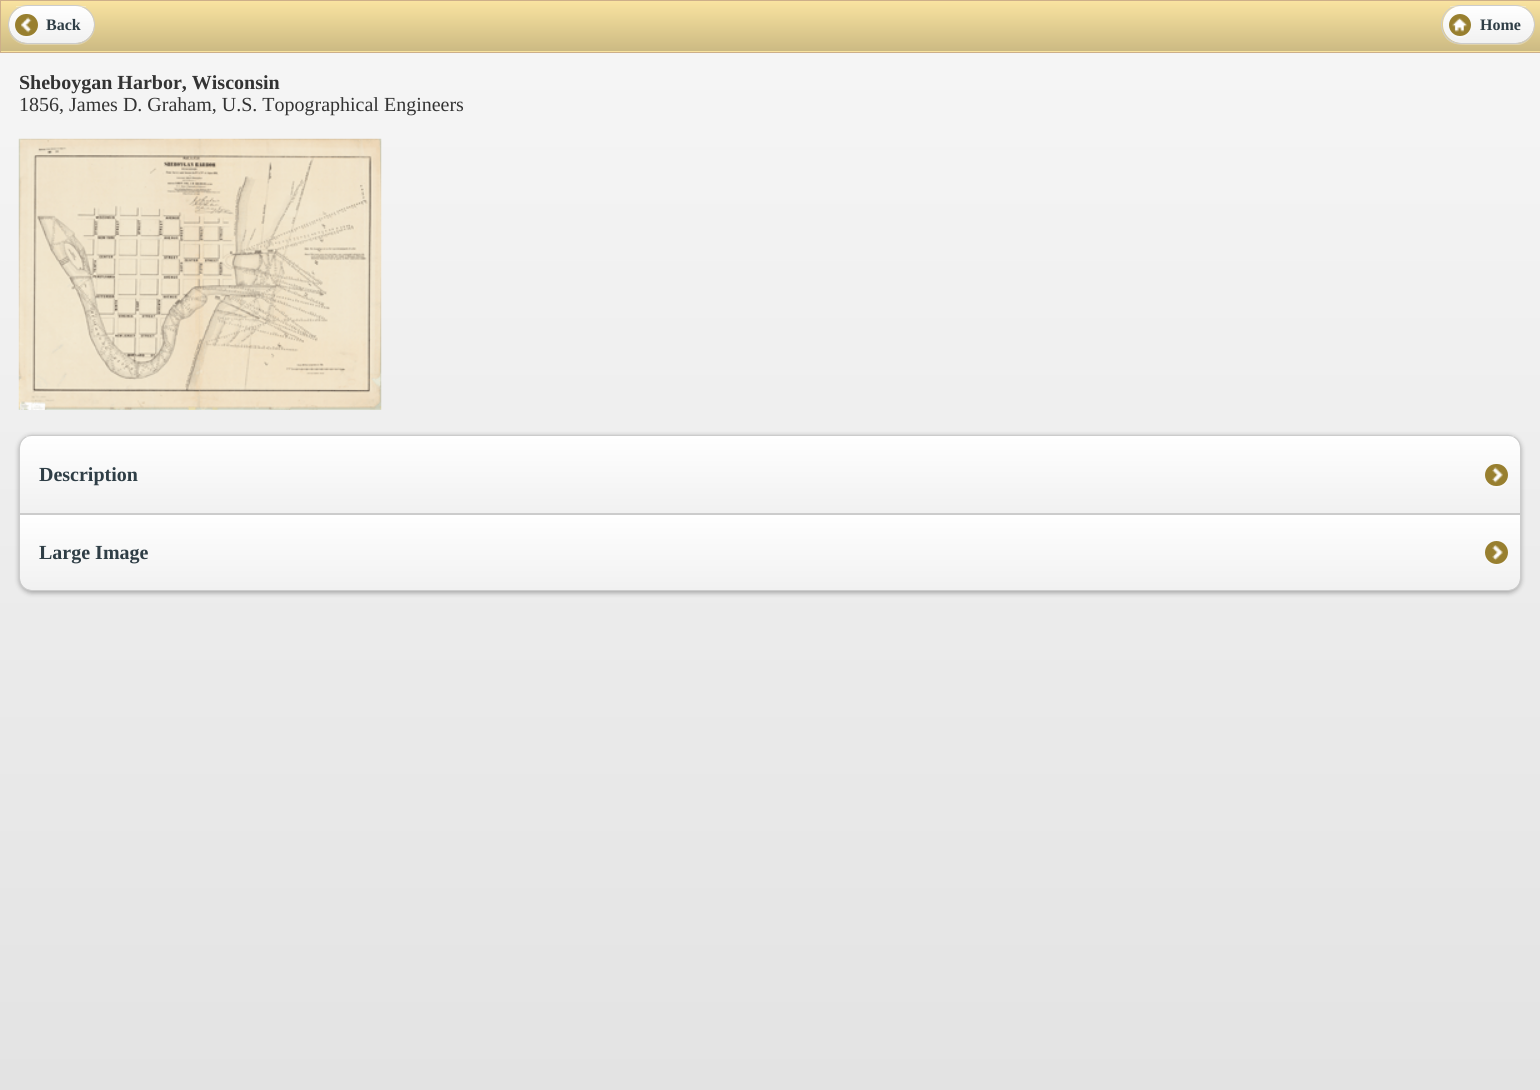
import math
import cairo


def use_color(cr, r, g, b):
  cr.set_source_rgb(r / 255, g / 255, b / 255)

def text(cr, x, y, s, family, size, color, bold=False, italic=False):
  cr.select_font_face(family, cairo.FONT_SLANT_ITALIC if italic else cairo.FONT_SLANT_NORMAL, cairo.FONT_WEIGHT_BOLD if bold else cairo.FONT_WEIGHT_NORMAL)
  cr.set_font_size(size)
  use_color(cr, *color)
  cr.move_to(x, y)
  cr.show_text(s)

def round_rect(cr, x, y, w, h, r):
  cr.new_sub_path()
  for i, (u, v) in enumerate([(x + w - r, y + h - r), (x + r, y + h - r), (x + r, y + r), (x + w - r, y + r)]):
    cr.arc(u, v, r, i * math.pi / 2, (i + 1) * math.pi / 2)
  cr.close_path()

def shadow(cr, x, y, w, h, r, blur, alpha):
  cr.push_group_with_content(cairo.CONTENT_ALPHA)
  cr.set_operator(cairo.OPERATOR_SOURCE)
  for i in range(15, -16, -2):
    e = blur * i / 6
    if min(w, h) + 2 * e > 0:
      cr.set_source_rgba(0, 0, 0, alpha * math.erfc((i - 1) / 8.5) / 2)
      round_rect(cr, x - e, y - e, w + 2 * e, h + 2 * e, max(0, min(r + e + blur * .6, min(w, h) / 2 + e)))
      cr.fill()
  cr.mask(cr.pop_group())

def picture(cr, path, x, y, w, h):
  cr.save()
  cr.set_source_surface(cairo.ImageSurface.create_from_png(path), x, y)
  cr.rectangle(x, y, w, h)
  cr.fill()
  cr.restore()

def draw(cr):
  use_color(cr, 255, 255, 255)
  cr.paint()
  gradient = cairo.LinearGradient(770, 0, 770, 1090)
  gradient.add_color_stop_rgba(0, 0.965, 0.965, 0.965, 1)
  gradient.add_color_stop_rgba(1, 0.89, 0.89, 0.89, 1)
  cr.set_source(gradient)
  cr.rectangle(0, 53, 1540, 1037)
  cr.fill()
  gradient = cairo.LinearGradient(771, 1.2, 771, 51)
  gradient.add_color_stop_rgba(0, 0.976, 0.89, 0.627, 1)
  gradient.add_color_stop_rgba(1, 0.8, 0.729, 0.514, 1)
  cr.set_source(gradient)
  cr.rectangle(1, 1, 1539, 50)
  cr.fill()
  gradient = cairo.LinearGradient(771, 51, 771, 101)
  gradient.add_color_stop_rgba(0, 0.976, 0.89, 0.627, 1)
  gradient.add_color_stop_rgba(1, 0.8, 0.729, 0.514, 1)
  cr.set_source(gradient)
  cr.rectangle(0, 51, 1540, 1)
  cr.fill()
  cr.rectangle(0.5, 0.5, 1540, 52)
  use_color(cr, 205, 175, 137)
  cr.set_line_width(1)
  cr.stroke()
  cr.set_source_rgba(1, 1, 1, 0.3)
  cr.new_path()
  cr.move_to(9, 33)
  cr.curve_to(12, 40, 19, 45, 28, 45)
  cr.line_to(76, 45)
  cr.curve_to(86, 45, 95, 36, 95, 26)
  cr.line_to(95, 25)
  cr.curve_to(95, 35, 86, 44, 76, 44)
  cr.line_to(27, 44)
  cr.curve_to(19, 44, 12, 39, 9, 33)
  cr.close_path()
  cr.fill()
  gradient = cairo.LinearGradient(51, 6.2, 51, 43)
  gradient.add_color_stop_rgba(0, 1, 1, 1, 1)
  gradient.add_color_stop_rgba(1, 0.945, 0.945, 0.945, 1)
  cr.set_source(gradient)
  round_rect(cr, 9, 6, 85, 37, 18.5)
  cr.fill()
  round_rect(cr, 8.5, 5.5, 86, 38, 19)
  use_color(cr, 204, 204, 204)
  cr.stroke()
  cr.set_source_rgba(1, 1, 1, 0.3)
  cr.rectangle(16, 6, 70, 1)
  cr.fill()
  cr.set_source_rgba(1, 1, 1, 0.4)
  cr.new_path()
  cr.move_to(15, 25.5)
  cr.curve_to(15, 28.5, 15.5, 31, 17, 33)
  cr.curve_to(25, 44.5, 42.5, 34.5, 37, 22)
  cr.curve_to(40, 32.5, 27, 41, 18.5, 33)
  cr.curve_to(16.5, 31.5, 15, 28.5, 15, 25.5)
  cr.close_path()
  cr.fill()
  use_color(cr, 152, 127, 47)
  round_rect(cr, 15, 14, 23, 22, 11)
  cr.fill()
  picture(cr, "img_01.png", 21, 17, 11, 16)
  cr.set_source_rgba(1, 1, 1, 0.3)
  cr.new_path()
  cr.move_to(1442, 21)
  cr.curve_to(1441, 25, 1441, 29, 1443, 33)
  cr.curve_to(1448, 45, 1458, 45, 1470, 45)
  cr.line_to(1519, 45)
  cr.curve_to(1529, 43, 1535, 34, 1535, 25)
  cr.curve_to(1535, 35, 1526, 44, 1516, 44)
  cr.line_to(1461, 44)
  cr.curve_to(1450, 44, 1441, 35, 1441, 24)
  cr.close_path()
  cr.fill()
  gradient = cairo.LinearGradient(1488, 6.2, 1488, 43)
  gradient.add_color_stop_rgba(0, 1, 1, 1, 1)
  gradient.add_color_stop_rgba(1, 0.945, 0.945, 0.945, 1)
  cr.set_source(gradient)
  round_rect(cr, 1443, 6, 91, 37, 18.5)
  cr.fill()
  round_rect(cr, 1441.5, 5.5, 93, 38, 19)
  use_color(cr, 204, 204, 204)
  cr.stroke()
  cr.set_source_rgba(1, 1, 1, 0.3)
  cr.rectangle(1450, 6, 76, 1)
  cr.fill()
  use_color(cr, 248, 248, 248)
  cr.new_path()
  cr.move_to(1471, 27.5)
  cr.curve_to(1468.5, 39, 1451.5, 39, 1449, 27.5)
  cr.curve_to(1449.5, 41.5, 1470.5, 41.5, 1471, 27.5)
  cr.close_path()
  cr.fill()
  use_color(cr, 152, 127, 47)
  cr.arc(1460, 25, 11, 0, 2 * math.pi)
  cr.fill()
  picture(cr, "img_02.png", 1452, 18, 16, 14)
  picture(cr, "img_03.png", 18, 138, 364, 272)
  use_color(cr, 0, 0, 0)
  shadow(cr, 19, 436, 1502, 157, 13, 2.5, 0.3)
  gradient = cairo.LinearGradient(770, 436, 770, 513)
  gradient.add_color_stop_rgba(0, 1, 1, 1, 1)
  gradient.add_color_stop_rgba(1, 0.945, 0.945, 0.945, 1)
  cr.set_source(gradient)
  cr.new_path()
  cr.move_to(31, 436)
  cr.line_to(1509, 436)
  cr.curve_to(1515, 436, 1520, 441, 1520, 447)
  cr.line_to(1520, 513)
  cr.line_to(20, 513)
  cr.line_to(20, 447)
  cr.curve_to(20, 441, 25, 436, 31, 436)
  cr.close_path()
  cr.fill()
  cr.new_path()
  cr.move_to(32, 435.5)
  cr.line_to(1508, 435.5)
  cr.curve_to(1515, 435.5, 1520.5, 441, 1520.5, 448)
  cr.line_to(1520.5, 513.5)
  cr.line_to(19.5, 513.5)
  cr.line_to(19.5, 448)
  cr.curve_to(19.5, 441, 25, 435.5, 32, 435.5)
  cr.close_path()
  use_color(cr, 204, 204, 204)
  cr.stroke()
  cr.set_source_rgba(1, 1, 1, 0.3)
  cr.rectangle(26, 436, 1488, 1)
  cr.fill()
  use_color(cr, 250, 250, 250)
  cr.new_path()
  cr.move_to(1485, 475.5)
  cr.curve_to(1485, 478.5, 1485.5, 481, 1487, 483)
  cr.curve_to(1495, 494.5, 1512.5, 484.5, 1507, 472)
  cr.curve_to(1510, 482.5, 1497, 491, 1488.5, 483)
  cr.curve_to(1486.5, 481.5, 1485, 478.5, 1485, 475.5)
  cr.close_path()
  cr.fill()
  use_color(cr, 152, 127, 47)
  round_rect(cr, 1485, 464, 23, 22, 11)
  cr.fill()
  picture(cr, "img_04.png", 1492, 467, 11, 16)
  gradient = cairo.LinearGradient(770, 515, 770, 590)
  gradient.add_color_stop_rgba(0, 1, 1, 1, 1)
  gradient.add_color_stop_rgba(1, 0.945, 0.945, 0.945, 1)
  cr.set_source(gradient)
  cr.new_path()
  cr.move_to(20, 515)
  cr.line_to(1520, 515)
  cr.line_to(1520, 579)
  cr.curve_to(1520, 585, 1515, 590, 1509, 590)
  cr.line_to(31, 590)
  cr.curve_to(25, 590, 20, 585, 20, 579)
  cr.close_path()
  cr.fill()
  cr.new_path()
  cr.move_to(19.5, 514.5)
  cr.line_to(1520.5, 514.5)
  cr.line_to(1520.5, 578)
  cr.curve_to(1520.5, 585, 1515, 590.5, 1508, 590.5)
  cr.line_to(32, 590.5)
  cr.curve_to(25, 590.5, 19.5, 585, 19.5, 578)
  cr.close_path()
  use_color(cr, 204, 204, 204)
  cr.stroke()
  use_color(cr, 250, 250, 250)
  cr.new_path()
  cr.move_to(1485, 553.5)
  cr.curve_to(1484, 566, 1502.5, 569.5, 1507, 558.5)
  cr.curve_to(1508.5, 555.5, 1508.5, 552.5, 1507, 550)
  cr.curve_to(1510, 560.5, 1496.5, 568.5, 1488.5, 560.5)
  cr.curve_to(1486.5, 559, 1485, 556, 1485, 553.5)
  cr.close_path()
  cr.fill()
  use_color(cr, 152, 127, 47)
  cr.arc(1496.5, 552.5, 11.5, 0, 2 * math.pi)
  cr.fill()
  picture(cr, "img_05.png", 1492, 545, 11, 16)
  text(cr, 46, 30, "Back", "Liberation Serif", 16, (47, 62, 70), bold=True)
  text(cr, 1480, 30, "Home", "Liberation Serif", 16, (47, 62, 70), bold=True)
  text(cr, 19, 89, "Sheboygan Harbor, Wisconsin", "Liberation Serif", 20, (51, 51, 51), bold=True)
  text(cr, 19, 111, "1856, James D. Graham, U.S. Topographical Engineers", "Liberation Serif", 20, (51, 51, 51))
  text(cr, 39, 481, "Description", "Liberation Serif", 20, (47, 62, 70), bold=True)
  text(cr, 39, 559, "Large Image", "Liberation Serif", 20, (47, 62, 70), bold=True)


surface = cairo.ImageSurface(cairo.FORMAT_RGB24, 1540, 1090)
cr = cairo.Context(surface)
options = cairo.FontOptions()
options.set_hint_metrics(cairo.HINT_METRICS_OFF)
options.set_hint_style(cairo.HINT_STYLE_NONE)
cr.set_font_options(options)
cr.set_miter_limit(4)
draw(cr)
surface.write_to_png("out.png")
